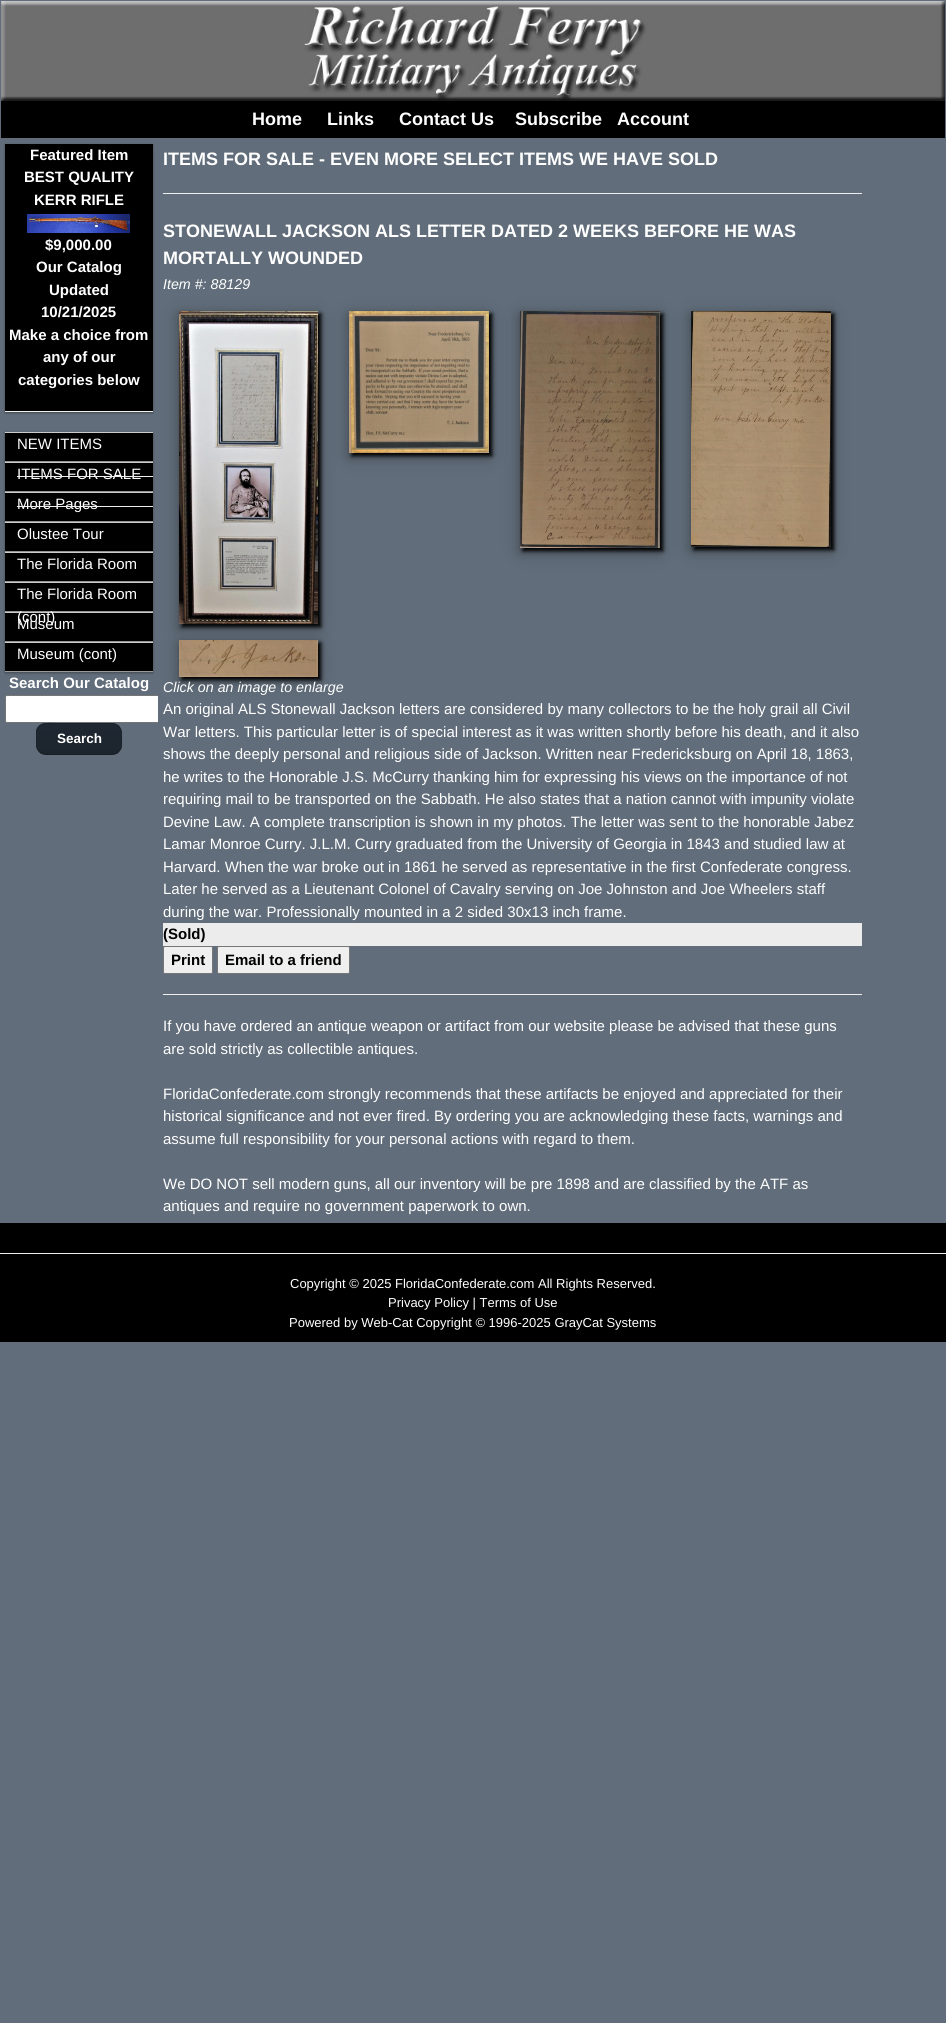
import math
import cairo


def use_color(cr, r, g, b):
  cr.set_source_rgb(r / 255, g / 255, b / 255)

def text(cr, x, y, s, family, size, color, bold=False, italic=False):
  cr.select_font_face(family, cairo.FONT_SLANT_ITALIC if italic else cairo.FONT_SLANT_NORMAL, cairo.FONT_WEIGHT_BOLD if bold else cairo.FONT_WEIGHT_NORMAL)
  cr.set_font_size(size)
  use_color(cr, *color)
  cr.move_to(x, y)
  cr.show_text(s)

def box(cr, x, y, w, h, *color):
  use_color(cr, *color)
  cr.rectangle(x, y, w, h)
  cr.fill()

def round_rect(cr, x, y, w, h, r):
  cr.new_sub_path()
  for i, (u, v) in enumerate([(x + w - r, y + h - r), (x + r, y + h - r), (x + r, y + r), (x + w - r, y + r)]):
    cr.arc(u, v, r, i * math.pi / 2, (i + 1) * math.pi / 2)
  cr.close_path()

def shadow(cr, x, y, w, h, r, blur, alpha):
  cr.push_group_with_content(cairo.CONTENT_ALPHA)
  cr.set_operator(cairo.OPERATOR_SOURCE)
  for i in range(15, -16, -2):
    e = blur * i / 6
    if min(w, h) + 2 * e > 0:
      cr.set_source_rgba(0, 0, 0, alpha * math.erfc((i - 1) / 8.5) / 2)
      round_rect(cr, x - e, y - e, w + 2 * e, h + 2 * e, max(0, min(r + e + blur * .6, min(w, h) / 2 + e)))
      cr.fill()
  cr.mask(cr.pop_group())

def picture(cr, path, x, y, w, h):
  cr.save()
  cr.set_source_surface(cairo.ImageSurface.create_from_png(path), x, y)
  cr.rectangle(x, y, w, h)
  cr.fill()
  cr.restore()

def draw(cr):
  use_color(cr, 97, 109, 122)
  cr.paint()
  picture(cr, "img_01.png", 1, 1, 944, 100)
  box(cr, 1, 101, 944, 37, 0, 0, 0)
  use_color(cr, 0, 0, 0)
  shadow(cr, 5, 145, 148, 268, 0, 1, 0.24)
  shadow(cr, 5, 145, 148, 268, 0, 1.5, 0.12)
  box(cr, 5, 144, 148, 267, 0, 0, 0)
  picture(cr, "img_02.png", 27, 214, 103, 19)
  use_color(cr, 0, 0, 0)
  shadow(cr, 5, 433, 148, 30, 0, 1, 0.24)
  shadow(cr, 5, 433, 148, 30, 0, 1.5, 0.12)
  box(cr, 5, 433, 148, 28, 0, 0, 0)
  box(cr, 5, 432, 148, 1, 204, 204, 204)
  box(cr, 5, 461, 148, 1, 153, 153, 153)
  use_color(cr, 0, 0, 0)
  shadow(cr, 5, 463, 148, 30, 0, 1, 0.24)
  shadow(cr, 5, 463, 148, 30, 0, 1.5, 0.12)
  box(cr, 5, 463, 148, 28, 0, 0, 0)
  box(cr, 5, 462, 148, 1, 204, 204, 204)
  box(cr, 5, 491, 148, 1, 153, 153, 153)
  use_color(cr, 0, 0, 0)
  shadow(cr, 5, 493, 148, 30, 0, 1, 0.24)
  shadow(cr, 5, 493, 148, 30, 0, 1.5, 0.12)
  box(cr, 5, 493, 148, 28, 0, 0, 0)
  box(cr, 5, 492, 148, 1, 204, 204, 204)
  box(cr, 5, 521, 148, 1, 153, 153, 153)
  use_color(cr, 0, 0, 0)
  shadow(cr, 5, 523, 148, 30, 0, 1, 0.24)
  shadow(cr, 5, 523, 148, 30, 0, 1.5, 0.12)
  box(cr, 5, 523, 148, 28, 0, 0, 0)
  box(cr, 5, 522, 148, 1, 204, 204, 204)
  box(cr, 5, 551, 148, 1, 153, 153, 153)
  use_color(cr, 0, 0, 0)
  shadow(cr, 5, 553, 148, 30, 0, 1, 0.24)
  shadow(cr, 5, 553, 148, 30, 0, 1.5, 0.12)
  box(cr, 5, 553, 148, 28, 0, 0, 0)
  box(cr, 5, 552, 148, 1, 204, 204, 204)
  box(cr, 5, 581, 148, 1, 153, 153, 153)
  use_color(cr, 0, 0, 0)
  shadow(cr, 5, 583, 148, 30, 0, 1, 0.24)
  shadow(cr, 5, 583, 148, 30, 0, 1.5, 0.12)
  box(cr, 5, 583, 148, 28, 0, 0, 0)
  box(cr, 5, 582, 148, 1, 204, 204, 204)
  box(cr, 5, 611, 148, 1, 153, 153, 153)
  use_color(cr, 0, 0, 0)
  shadow(cr, 5, 613, 148, 30, 0, 1, 0.24)
  shadow(cr, 5, 613, 148, 30, 0, 1.5, 0.12)
  box(cr, 5, 613, 148, 28, 0, 0, 0)
  box(cr, 5, 612, 148, 1, 204, 204, 204)
  box(cr, 5, 641, 148, 1, 153, 153, 153)
  use_color(cr, 0, 0, 0)
  shadow(cr, 5, 643, 148, 30, 0, 1, 0.24)
  shadow(cr, 5, 643, 148, 30, 0, 1.5, 0.12)
  box(cr, 5, 643, 148, 28, 0, 0, 0)
  box(cr, 5, 642, 148, 1, 204, 204, 204)
  use_color(cr, 0, 0, 0)
  shadow(cr, 179, 315, 139, 313, 0, 10, 0.19)
  box(cr, 5, 411, 148, 1, 238, 238, 238)
  box(cr, 5, 671, 148, 1, 153, 153, 153)
  use_color(cr, 255, 255, 255)
  round_rect(cr, 5.5, 695.5, 208, 27, 1.5)
  cr.fill_preserve()
  use_color(cr, 118, 118, 118)
  cr.set_line_width(1)
  cr.stroke()
  cr.save()
  round_rect(cr, 36, 723, 86, 32, 10)
  cr.clip()
  gradient = cairo.LinearGradient(79, 694, 79, 724)
  gradient.add_color_stop_rgba(0, 0.122, 0.157, 0.196, 1)
  gradient.add_color_stop_rgba(1, 0.11, 0.141, 0.176, 1)
  cr.set_source(gradient)
  cr.rectangle(36, 723, 86, 1)
  cr.fill()
  gradient = cairo.LinearGradient(79, 724, 79, 754)
  gradient.add_color_stop_rgba(0, 0.122, 0.157, 0.196, 1)
  gradient.add_color_stop_rgba(1, 0.11, 0.141, 0.176, 1)
  cr.set_source(gradient)
  cr.rectangle(36, 724, 86, 30)
  cr.fill()
  cr.restore()
  cr.new_path()
  cr.move_to(118.5, 751.5)
  cr.curve_to(117, 753.5, 114.5, 754.5, 112, 754.5)
  cr.line_to(46, 754.5)
  cr.curve_to(43.5, 754.5, 41, 753.5, 39.5, 751.5)
  use_color(cr, 22, 28, 35)
  cr.stroke()
  cr.new_path()
  cr.move_to(39.5, 751.5)
  cr.curve_to(36, 748.5, 36.5, 743.5, 36.5, 739)
  cr.line_to(36.5, 731)
  cr.curve_to(38.5, 721.5, 50, 723.5, 57, 723.5)
  cr.line_to(101, 723.5)
  cr.curve_to(114.5, 723.5, 121.5, 722, 121.5, 737)
  cr.curve_to(121.5, 742, 122.5, 748, 118.5, 751.5)
  use_color(cr, 26, 34, 43)
  cr.stroke()
  box(cr, 158, 695, 56, 28, 97, 109, 122)
  box(cr, 163, 193, 699, 1, 238, 238, 238)
  use_color(cr, 0, 0, 0)
  shadow(cr, 179, 315, 139, 313, 0, 5, 0.2)
  shadow(cr, 182, 314, 139, 313, 0, 2, 1)
  picture(cr, "img_03.png", 179, 311, 139, 313)
  shadow(cr, 349, 315, 140, 142, 0, 10, 0.19)
  shadow(cr, 349, 315, 140, 142, 0, 5, 0.2)
  shadow(cr, 352, 314, 140, 142, 0, 2, 1)
  picture(cr, "img_04.png", 349, 311, 140, 142)
  shadow(cr, 520, 315, 140, 237, 0, 10, 0.19)
  shadow(cr, 520, 315, 140, 237, 0, 5, 0.2)
  shadow(cr, 523, 314, 140, 237, 0, 2, 1)
  picture(cr, "img_05.png", 520, 311, 140, 237)
  shadow(cr, 691, 315, 140, 236, 0, 10, 0.19)
  shadow(cr, 691, 315, 140, 236, 0, 5, 0.2)
  shadow(cr, 694, 314, 140, 236, 0, 2, 1)
  picture(cr, "img_06.png", 691, 311, 140, 236)
  shadow(cr, 179, 644, 139, 37, 0, 10, 0.19)
  shadow(cr, 179, 644, 139, 37, 0, 5, 0.2)
  shadow(cr, 182, 643, 139, 37, 0, 2, 1)
  picture(cr, "img_07.png", 179, 640, 139, 37)
  box(cr, 163, 923, 699, 23, 236, 236, 236)
  use_color(cr, 239, 239, 239)
  round_rect(cr, 163.5, 946.5, 49, 27, 1.5)
  cr.fill_preserve()
  use_color(cr, 118, 118, 118)
  cr.stroke()
  use_color(cr, 239, 239, 239)
  round_rect(cr, 217.5, 946.5, 132, 27, 1.5)
  cr.fill_preserve()
  use_color(cr, 118, 118, 118)
  cr.stroke()
  box(cr, 163, 994, 699, 1, 238, 238, 238)
  box(cr, 0, 1223, 946, 119, 0, 0, 0)
  box(cr, 0, 1253, 946, 1, 238, 238, 238)
  text(cr, 252, 125, "Home", "Liberation Sans", 18, (255, 255, 255), bold=True)
  text(cr, 327, 125, "Links", "Liberation Sans", 18, (255, 255, 255), bold=True)
  text(cr, 399, 125, "Contact Us", "Liberation Sans", 18, (255, 255, 255), bold=True)
  text(cr, 515, 125, "Subscribe", "Liberation Sans", 18, (255, 255, 255), bold=True)
  text(cr, 617, 125, "Account", "Liberation Sans", 18, (255, 255, 255), bold=True)
  text(cr, 30, 160, "Featured Item", "Liberation Sans", 15, (255, 255, 255), bold=True)
  text(cr, 24, 182, "BEST QUALITY", "Liberation Sans", 15, (255, 255, 255), bold=True)
  text(cr, 34, 205, "KERR RIFLE", "Liberation Sans", 15, (255, 255, 255), bold=True)
  text(cr, 45, 250, "$9,000.00", "Liberation Sans", 15, (255, 255, 255), bold=True)
  text(cr, 36, 272, "Our Catalog", "Liberation Sans", 15, (255, 255, 255), bold=True)
  text(cr, 49, 295, "Updated", "Liberation Sans", 15, (255, 255, 255), bold=True)
  text(cr, 41, 317, "10/21/2025", "Liberation Sans", 15, (255, 255, 255), bold=True)
  text(cr, 9, 340, "Make a choice from", "Liberation Sans", 15, (255, 255, 255), bold=True)
  text(cr, 43, 362, "any of our", "Liberation Sans", 15, (255, 255, 255), bold=True)
  text(cr, 18, 385, "categories below", "Liberation Sans", 15, (255, 255, 255), bold=True)
  text(cr, 17, 449, "NEW ITEMS", "Liberation Sans", 15, (255, 255, 255))
  text(cr, 17, 479, "ITEMS FOR SALE", "Liberation Sans", 15, (255, 255, 255))
  box(cr, 17, 476, 136, 1, 238, 238, 238)
  text(cr, 17, 509, "More Pages", "Liberation Sans", 15, (255, 255, 255))
  box(cr, 17, 506, 136, 1, 238, 238, 238)
  text(cr, 17, 539, "Olustee Tour", "Liberation Sans", 15, (255, 255, 255))
  text(cr, 17, 569, "The Florida Room", "Liberation Sans", 15, (255, 255, 255))
  text(cr, 17, 599, "The Florida Room", "Liberation Sans", 15, (255, 255, 255))
  text(cr, 17, 622, "(cont)", "Liberation Sans", 15, (255, 255, 255))
  text(cr, 17, 629, "Museum", "Liberation Sans", 15, (255, 255, 255))
  text(cr, 17, 659, "Museum (cont)", "Liberation Sans", 15, (255, 255, 255))
  text(cr, 9, 688, "Search Our Catalog", "Liberation Sans", 15, (255, 255, 255), bold=True)
  text(cr, 57, 743, "Search", "Liberation Sans", 13.5, (255, 255, 255), bold=True)
  text(cr, 163, 165, "ITEMS FOR SALE - EVEN MORE SELECT ITEMS WE HAVE SOLD", "Liberation Sans", 18, (255, 255, 255), bold=True)
  text(cr, 163, 237, "STONEWALL JACKSON ALS LETTER DATED 2 WEEKS BEFORE HE WAS", "Liberation Sans", 18, (255, 255, 255), bold=True)
  text(cr, 163, 264, "MORTALLY WOUNDED", "Liberation Sans", 18, (255, 255, 255), bold=True)
  text(cr, 163, 289, "Item #: 88129", "Liberation Sans", 14.25, (255, 255, 255), italic=True)
  text(cr, 163, 692, "Click on an image to enlarge", "Liberation Sans", 14.25, (255, 255, 255), italic=True)
  text(cr, 163, 714, "An original ALS Stonewall Jackson letters are considered by many collectors to be the holy grail all Civil", "Liberation Sans", 15, (255, 255, 255))
  text(cr, 163, 737, "War letters. This particular letter is of special interest as it was written shortly before his death, and it also", "Liberation Sans", 15, (255, 255, 255))
  text(cr, 163, 759, "shows the deeply personal and religious side of Jackson. Written near Fredericksburg on April 18, 1863,", "Liberation Sans", 15, (255, 255, 255))
  text(cr, 163, 782, "he writes to the Honorable J.S. McCurry thanking him for expressing his views on the importance of not", "Liberation Sans", 15, (255, 255, 255))
  text(cr, 163, 804, "requiring mail to be transported on the Sabbath. He also states that a nation cannot with impunity violate", "Liberation Sans", 15, (255, 255, 255))
  text(cr, 163, 827, "Devine Law. A complete transcription is shown in my photos. The letter was sent to the honorable Jabez", "Liberation Sans", 15, (255, 255, 255))
  text(cr, 163, 849, "Lamar Monroe Curry. J.L.M. Curry graduated from the University of Georgia in 1843 and studied law at", "Liberation Sans", 15, (255, 255, 255))
  text(cr, 163, 872, "Harvard. When the war broke out in 1861 he served as representative in the first Confederate congress.", "Liberation Sans", 15, (255, 255, 255))
  text(cr, 163, 894, "Later he served as a Lieutenant Colonel of Cavalry serving on Joe Johnston and Joe Wheelers staff", "Liberation Sans", 15, (255, 255, 255))
  text(cr, 163, 917, "during the war. Professionally mounted in a 2 sided 30x13 inch frame.", "Liberation Sans", 15, (255, 255, 255))
  text(cr, 163, 939, "(Sold)", "Liberation Sans", 15, (0, 0, 0), bold=True)
  text(cr, 171, 965, "Print", "Liberation Sans", 15, (0, 0, 0), bold=True)
  text(cr, 225, 965, "Email to a friend", "Liberation Sans", 15, (0, 0, 0), bold=True)
  text(cr, 163, 1031, "If you have ordered an antique weapon or artifact from our website please be advised that these guns", "Liberation Sans", 15, (255, 255, 255))
  text(cr, 163, 1054, "are sold strictly as collectible antiques.", "Liberation Sans", 15, (255, 255, 255))
  text(cr, 163, 1099, "FloridaConfederate.com strongly recommends that these artifacts be enjoyed and appreciated for their", "Liberation Sans", 15, (255, 255, 255))
  text(cr, 163, 1121, "historical significance and not ever fired. By ordering you are acknowledging these facts, warnings and", "Liberation Sans", 15, (255, 255, 255))
  text(cr, 163, 1144, "assume full responsibility for your personal actions with regard to them.", "Liberation Sans", 15, (255, 255, 255))
  text(cr, 163, 1189, "We DO NOT sell modern guns, all our inventory will be pre 1898 and are classified by the ATF as", "Liberation Sans", 15, (255, 255, 255))
  text(cr, 163, 1211, "antiques and require no government paperwork to own.", "Liberation Sans", 15, (255, 255, 255))
  text(cr, 290, 1288, "Copyright © 2025 FloridaConfederate.com All Rights Reserved.", "Liberation Sans", 13, (255, 255, 255))
  text(cr, 388, 1307, "Privacy Policy | Terms of Use", "Liberation Sans", 13, (255, 255, 255))
  text(cr, 289, 1327, "Powered by Web-Cat Copyright © 1996-2025 GrayCat Systems", "Liberation Sans", 13, (255, 255, 255))


surface = cairo.ImageSurface(cairo.FORMAT_RGB24, 946, 2023)
cr = cairo.Context(surface)
options = cairo.FontOptions()
options.set_hint_metrics(cairo.HINT_METRICS_OFF)
options.set_hint_style(cairo.HINT_STYLE_NONE)
cr.set_font_options(options)
cr.set_miter_limit(4)
draw(cr)
surface.write_to_png("out.png")
